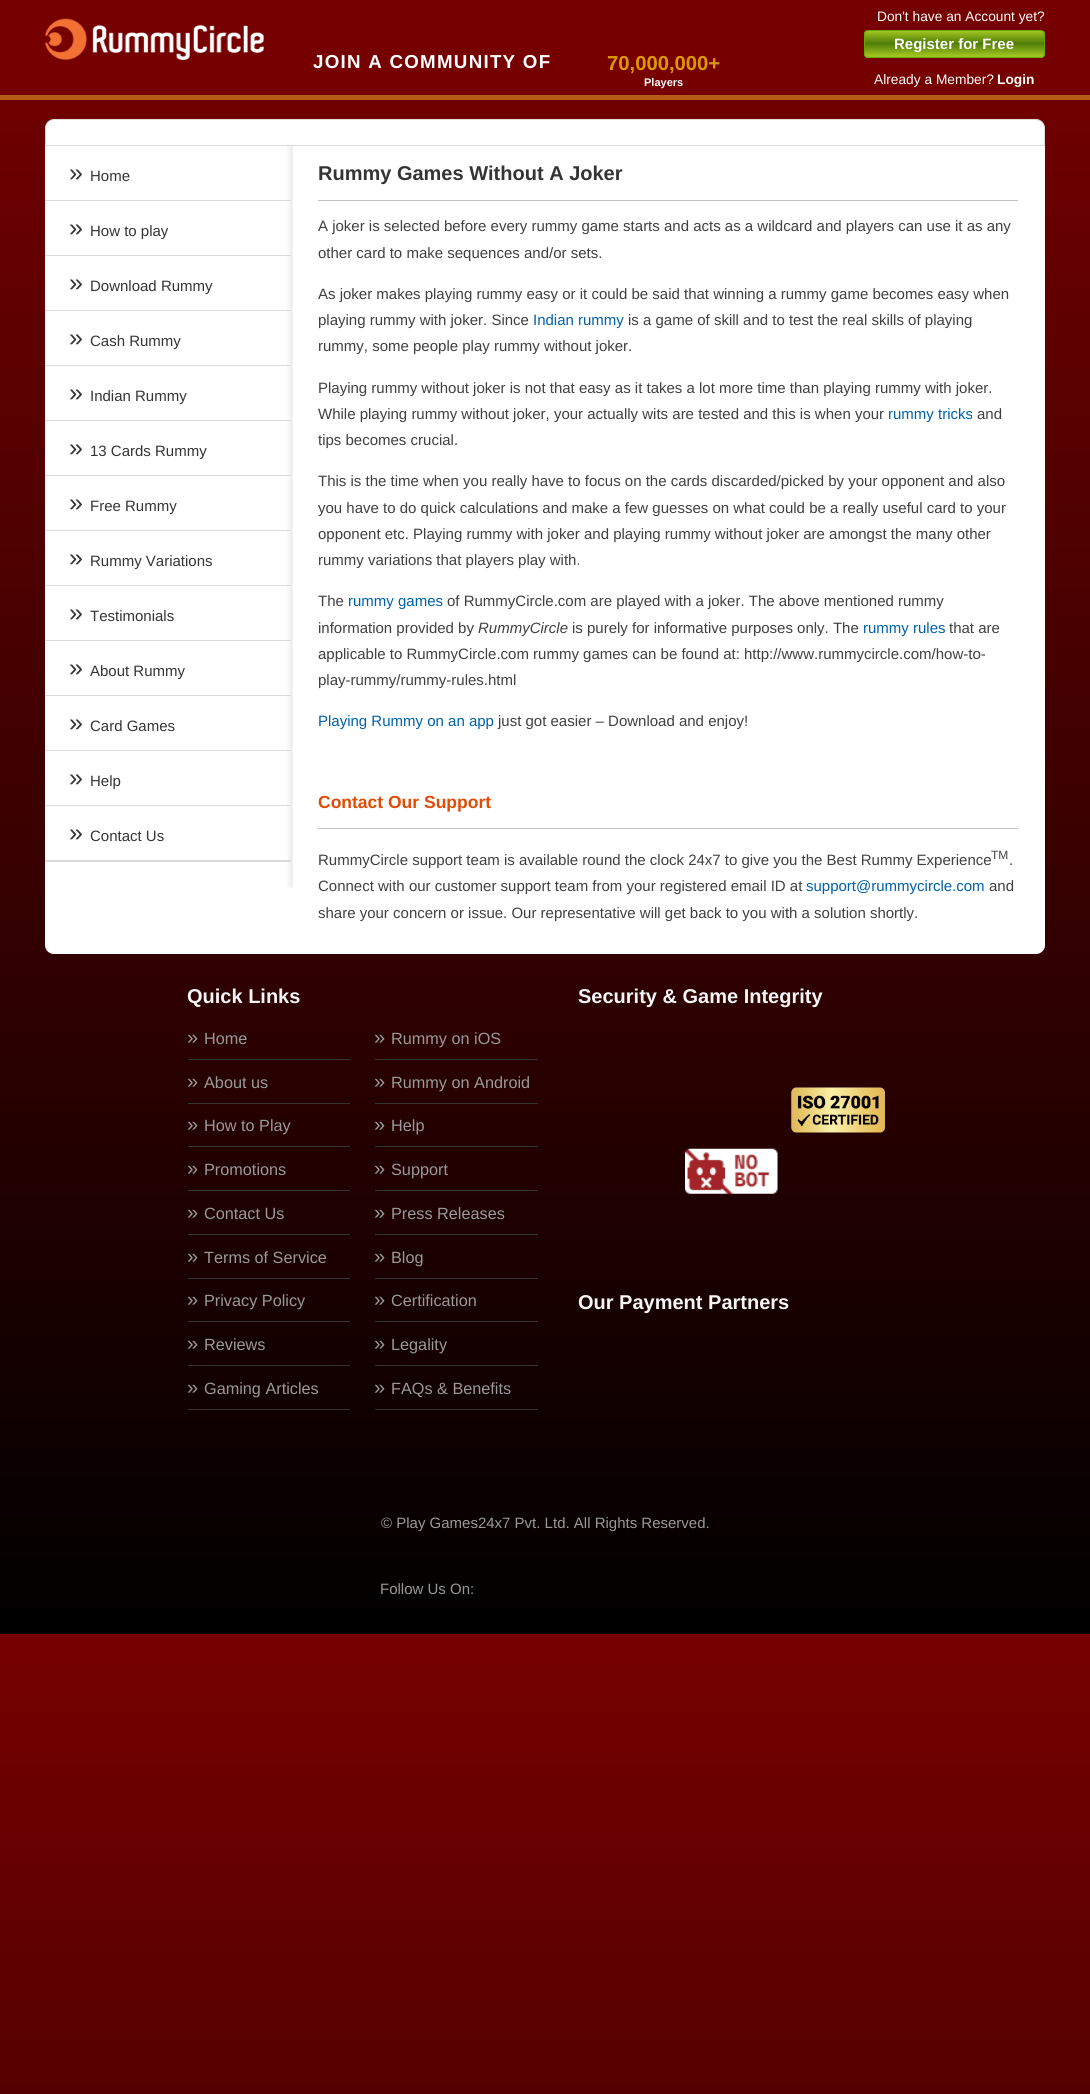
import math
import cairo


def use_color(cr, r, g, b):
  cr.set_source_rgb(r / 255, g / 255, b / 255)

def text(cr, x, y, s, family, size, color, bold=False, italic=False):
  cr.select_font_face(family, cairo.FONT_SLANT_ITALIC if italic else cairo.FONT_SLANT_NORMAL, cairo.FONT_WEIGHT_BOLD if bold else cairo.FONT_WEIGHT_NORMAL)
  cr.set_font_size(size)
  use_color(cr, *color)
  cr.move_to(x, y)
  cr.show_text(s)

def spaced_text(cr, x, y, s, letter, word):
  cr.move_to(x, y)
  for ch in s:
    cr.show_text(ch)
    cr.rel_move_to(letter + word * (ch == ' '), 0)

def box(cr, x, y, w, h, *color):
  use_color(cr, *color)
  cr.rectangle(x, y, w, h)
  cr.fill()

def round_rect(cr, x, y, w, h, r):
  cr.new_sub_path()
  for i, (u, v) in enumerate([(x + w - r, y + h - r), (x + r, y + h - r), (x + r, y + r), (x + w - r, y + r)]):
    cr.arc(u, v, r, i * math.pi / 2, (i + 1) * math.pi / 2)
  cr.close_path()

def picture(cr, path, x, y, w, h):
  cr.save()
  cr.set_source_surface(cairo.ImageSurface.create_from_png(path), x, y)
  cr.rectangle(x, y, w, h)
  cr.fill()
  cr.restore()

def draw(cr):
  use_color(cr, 255, 255, 255)
  cr.paint()
  gradient = cairo.LinearGradient(545, 0, 545, 1634)
  gradient.add_color_stop_rgba(0, 0.463, 0, 0, 1)
  gradient.add_color_stop_rgba(1, 0, 0, 0, 1)
  cr.set_source(gradient)
  cr.rectangle(0, 100, 1090, 1534)
  cr.fill()
  gradient = cairo.LinearGradient(545, 1634, 545, 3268)
  gradient.add_color_stop_rgba(0, 0.463, 0, 0, 1)
  gradient.add_color_stop_rgba(1, 0, 0, 0, 1)
  cr.set_source(gradient)
  cr.rectangle(0, 1634, 1090, 460)
  cr.fill()
  box(cr, 0, 0, 1090, 95, 118, 0, 0)
  box(cr, 0, 95, 1090, 5, 180, 92, 24)
  picture(cr, "img_01.png", 45, 18, 219, 42)
  cr.save()
  round_rect(cr, 864, 30, 181, 28, 4)
  cr.clip()
  gradient = cairo.LinearGradient(865, 56, 865, 31)
  gradient.add_color_stop_rgba(0, 0.631, 0.776, 0.122, 1)
  gradient.add_color_stop_rgba(0.5, 0.314, 0.486, 0.035, 1)
  gradient.add_color_stop_rgba(1, 0.631, 0.776, 0.122, 1)
  cr.set_source(gradient)
  cr.rectangle(864, 31, 181, 25)
  cr.fill()
  gradient = cairo.LinearGradient(865, 81, 865, 56)
  gradient.add_color_stop_rgba(0, 0.631, 0.776, 0.122, 1)
  gradient.add_color_stop_rgba(0.5, 0.314, 0.486, 0.035, 1)
  gradient.add_color_stop_rgba(1, 0.631, 0.776, 0.122, 1)
  cr.set_source(gradient)
  cr.rectangle(864, 56, 181, 2)
  cr.fill()
  cr.restore()
  round_rect(cr, 864.5, 30.5, 180, 27, 3.5)
  use_color(cr, 98, 168, 0)
  cr.set_line_width(1)
  cr.stroke()
  use_color(cr, 255, 255, 255)
  cr.new_path()
  cr.move_to(54, 119.5)
  cr.line_to(1036, 119.5)
  cr.curve_to(1040.5, 119.5, 1044.5, 123.5, 1044.5, 128)
  cr.line_to(1044.5, 145.5)
  cr.line_to(45.5, 145.5)
  cr.line_to(45.5, 128)
  cr.curve_to(45.5, 123.5, 49.5, 119.5, 54, 119.5)
  cr.close_path()
  cr.fill_preserve()
  use_color(cr, 220, 218, 218)
  cr.stroke()
  use_color(cr, 255, 255, 255)
  cr.new_path()
  cr.move_to(45, 146)
  cr.line_to(1045, 146)
  cr.line_to(1045, 945)
  cr.curve_to(1045, 950, 1041, 954, 1036, 954)
  cr.line_to(54, 954)
  cr.curve_to(49, 954, 45, 950, 45, 945)
  cr.close_path()
  cr.fill()
  picture(cr, "img_02.png", 287, 146, 6, 742)
  box(cr, 45, 860, 246, 2, 220, 218, 218)
  box(cr, 45, 200, 246, 1, 220, 218, 218)
  box(cr, 45, 255, 246, 1, 220, 218, 218)
  box(cr, 45, 310, 246, 1, 220, 218, 218)
  box(cr, 45, 365, 246, 1, 220, 218, 218)
  box(cr, 45, 420, 246, 1, 220, 218, 218)
  box(cr, 45, 475, 246, 1, 220, 218, 218)
  box(cr, 45, 530, 246, 1, 220, 218, 218)
  box(cr, 45, 585, 246, 1, 220, 218, 218)
  box(cr, 45, 640, 246, 1, 220, 218, 218)
  box(cr, 45, 695, 246, 1, 220, 218, 218)
  box(cr, 45, 750, 246, 1, 220, 218, 218)
  box(cr, 45, 805, 246, 1, 220, 218, 218)
  box(cr, 318, 200, 700, 1, 196, 194, 194)
  box(cr, 318, 828, 700, 1, 196, 194, 194)
  box(cr, 188, 1059, 162, 1, 52, 52, 52)
  box(cr, 188, 1103, 162, 1, 52, 52, 52)
  box(cr, 188, 1146, 162, 1, 52, 52, 52)
  box(cr, 188, 1190, 162, 1, 52, 52, 52)
  box(cr, 188, 1234, 162, 1, 52, 52, 52)
  box(cr, 188, 1278, 162, 1, 52, 52, 52)
  box(cr, 188, 1321, 162, 1, 52, 52, 52)
  box(cr, 188, 1365, 162, 1, 52, 52, 52)
  box(cr, 188, 1409, 162, 1, 52, 52, 52)
  box(cr, 375, 1059, 163, 1, 52, 52, 52)
  box(cr, 375, 1103, 163, 1, 52, 52, 52)
  box(cr, 375, 1146, 163, 1, 52, 52, 52)
  box(cr, 375, 1190, 163, 1, 52, 52, 52)
  box(cr, 375, 1234, 163, 1, 52, 52, 52)
  box(cr, 375, 1278, 163, 1, 52, 52, 52)
  box(cr, 375, 1321, 163, 1, 52, 52, 52)
  box(cr, 375, 1365, 163, 1, 52, 52, 52)
  box(cr, 375, 1409, 163, 1, 52, 52, 52)
  picture(cr, "img_03.png", 791, 1087, 94, 46)
  picture(cr, "img_04.png", 685, 1148, 93, 46)
  cr.select_font_face("Liberation Sans", cairo.FONT_SLANT_NORMAL, cairo.FONT_WEIGHT_BOLD)
  cr.set_font_size(18.75)
  use_color(cr, 255, 255, 255)
  spaced_text(cr, 313, 68, "JOIN A COMMUNITY OF", 1.25, 0)
  text(cr, 607, 70, "70,000,000+", "Liberation Sans", 20.25, (220, 152, 4), bold=True)
  text(cr, 644, 86, "Players", "Liberation Sans", 11, (255, 255, 255), bold=True)
  text(cr, 877, 21, "Don't have an Account yet?", "Liberation Sans", 13.75, (255, 255, 255))
  text(cr, 894, 49, "Register for Free", "Liberation Sans", 15, (255, 255, 255), bold=True)
  text(cr, 874, 84, "Already a Member?", "Liberation Sans", 13.75, (255, 255, 255))
  text(cr, 997, 84, "Login", "Liberation Sans", 13.75, (255, 255, 255), bold=True)
  text(cr, 69, 181, "»", "Liberation Sans", 25, (52, 52, 52))
  text(cr, 90, 181, "Home", "Liberation Sans", 15, (52, 52, 52))
  text(cr, 69, 236, "»", "Liberation Sans", 25, (52, 52, 52))
  text(cr, 90, 236, "How to play", "Liberation Sans", 15, (52, 52, 52))
  text(cr, 69, 291, "»", "Liberation Sans", 25, (52, 52, 52))
  text(cr, 90, 291, "Download Rummy", "Liberation Sans", 15, (52, 52, 52))
  text(cr, 69, 346, "»", "Liberation Sans", 25, (52, 52, 52))
  text(cr, 90, 346, "Cash Rummy", "Liberation Sans", 15, (52, 52, 52))
  text(cr, 69, 401, "»", "Liberation Sans", 25, (52, 52, 52))
  text(cr, 90, 401, "Indian Rummy", "Liberation Sans", 15, (52, 52, 52))
  text(cr, 69, 456, "»", "Liberation Sans", 25, (52, 52, 52))
  text(cr, 90, 456, "13 Cards Rummy", "Liberation Sans", 15, (52, 52, 52))
  text(cr, 69, 511, "»", "Liberation Sans", 25, (52, 52, 52))
  text(cr, 90, 511, "Free Rummy", "Liberation Sans", 15, (52, 52, 52))
  text(cr, 69, 566, "»", "Liberation Sans", 25, (52, 52, 52))
  text(cr, 90, 566, "Rummy Variations", "Liberation Sans", 15, (52, 52, 52))
  text(cr, 69, 621, "»", "Liberation Sans", 25, (52, 52, 52))
  text(cr, 90, 621, "Testimonials", "Liberation Sans", 15, (52, 52, 52))
  text(cr, 69, 676, "»", "Liberation Sans", 25, (52, 52, 52))
  text(cr, 90, 676, "About Rummy", "Liberation Sans", 15, (52, 52, 52))
  text(cr, 69, 731, "»", "Liberation Sans", 25, (52, 52, 52))
  text(cr, 90, 731, "Card Games", "Liberation Sans", 15, (52, 52, 52))
  text(cr, 69, 786, "»", "Liberation Sans", 25, (52, 52, 52))
  text(cr, 90, 786, "Help", "Liberation Sans", 15, (52, 52, 52))
  text(cr, 69, 841, "»", "Liberation Sans", 25, (52, 52, 52))
  text(cr, 90, 841, "Contact Us", "Liberation Sans", 15, (52, 52, 52))
  text(cr, 318, 180, "Rummy Games Without A Joker", "Liberation Sans", 20, (52, 52, 52), bold=True)
  text(cr, 318, 231, "A joker is selected before every rummy game starts and acts as a wildcard and players can use it as any", "Liberation Sans", 15, (64, 64, 64))
  text(cr, 318, 258, "other card to make sequences and/or sets.", "Liberation Sans", 15, (64, 64, 64))
  text(cr, 318, 299, "As joker makes playing rummy easy or it could be said that winning a rummy game becomes easy when", "Liberation Sans", 15, (64, 64, 64))
  text(cr, 318, 325, "playing rummy with joker. Since", "Liberation Sans", 15, (64, 64, 64))
  text(cr, 533, 325, "Indian rummy", "Liberation Sans", 15, (0, 96, 172))
  text(cr, 628, 325, "is a game of skill and to test the real skills of playing", "Liberation Sans", 15, (64, 64, 64))
  text(cr, 318, 351, "rummy, some people play rummy without joker.", "Liberation Sans", 15, (64, 64, 64))
  text(cr, 318, 393, "Playing rummy without joker is not that easy as it takes a lot more time than playing rummy with joker.", "Liberation Sans", 15, (64, 64, 64))
  text(cr, 318, 419, "While playing rummy without joker, your actually wits are tested and this is when your", "Liberation Sans", 15, (64, 64, 64))
  text(cr, 888, 419, "rummy tricks", "Liberation Sans", 15, (0, 96, 172))
  text(cr, 977, 419, "and", "Liberation Sans", 15, (64, 64, 64))
  text(cr, 318, 445, "tips becomes crucial.", "Liberation Sans", 15, (64, 64, 64))
  text(cr, 318, 486, "This is the time when you really have to focus on the cards discarded/picked by your opponent and also", "Liberation Sans", 15, (64, 64, 64))
  text(cr, 318, 513, "you have to do quick calculations and make a few guesses on what could be a really useful card to your", "Liberation Sans", 15, (64, 64, 64))
  text(cr, 318, 539, "opponent etc. Playing rummy with joker and playing rummy without joker are amongst the many other", "Liberation Sans", 15, (64, 64, 64))
  text(cr, 318, 565, "rummy variations that players play with.", "Liberation Sans", 15, (64, 64, 64))
  text(cr, 318, 606, "The", "Liberation Sans", 15, (64, 64, 64))
  text(cr, 348, 606, "rummy games", "Liberation Sans", 15, (0, 96, 172))
  text(cr, 447, 606, "of RummyCircle.com are played with a joker. The above mentioned rummy", "Liberation Sans", 15, (64, 64, 64))
  text(cr, 318, 633, "information provided by", "Liberation Sans", 15, (64, 64, 64))
  text(cr, 478, 633, "RummyCircle", "Liberation Sans", 15, (64, 64, 64), italic=True)
  text(cr, 572, 633, "is purely for informative purposes only. The", "Liberation Sans", 15, (64, 64, 64))
  text(cr, 863, 633, "rummy rules", "Liberation Sans", 15, (0, 96, 172))
  text(cr, 949, 633, "that are", "Liberation Sans", 15, (64, 64, 64))
  text(cr, 318, 659, "applicable to RummyCircle.com rummy games can be found at: http://www.rummycircle.com/how-to-", "Liberation Sans", 15, (64, 64, 64))
  text(cr, 318, 685, "play-rummy/rummy-rules.html", "Liberation Sans", 15, (64, 64, 64))
  text(cr, 318, 726, "Playing Rummy on an app", "Liberation Sans", 15, (0, 96, 172))
  text(cr, 498, 726, "just got easier – Download and enjoy!", "Liberation Sans", 15, (64, 64, 64))
  text(cr, 318, 808, "Contact Our Support", "Liberation Sans", 17.5, (224, 76, 6), bold=True)
  text(cr, 318, 865, "RummyCircle support team is available round the clock 24x7 to give you the Best Rummy Experience", "Liberation Sans", 15, (64, 64, 64))
  text(cr, 991, 859, "TM", "Liberation Sans", 12, (64, 64, 64))
  text(cr, 1009, 865, ".", "Liberation Sans", 15, (64, 64, 64))
  text(cr, 318, 891, "Connect with our customer support team from your registered email ID at", "Liberation Sans", 15, (64, 64, 64))
  text(cr, 806, 891, "support@rummycircle.com", "Liberation Sans", 15, (0, 96, 172))
  text(cr, 989, 891, "and", "Liberation Sans", 15, (64, 64, 64))
  text(cr, 318, 918, "share your concern or issue. Our representative will get back to you with a solution shortly.", "Liberation Sans", 15, (64, 64, 64))
  text(cr, 187, 1003, "Quick Links", "Liberation Sans", 20, (246, 246, 246), bold=True)
  text(cr, 187, 1044, "»", "Liberation Sans", 20, (153, 153, 153))
  text(cr, 204, 1044, "Home", "Liberation Sans", 16.25, (153, 153, 153))
  text(cr, 187, 1088, "»", "Liberation Sans", 20, (153, 153, 153))
  text(cr, 204, 1088, "About us", "Liberation Sans", 16.25, (153, 153, 153))
  text(cr, 187, 1131, "»", "Liberation Sans", 20, (153, 153, 153))
  text(cr, 204, 1131, "How to Play", "Liberation Sans", 16.25, (153, 153, 153))
  text(cr, 187, 1175, "»", "Liberation Sans", 20, (153, 153, 153))
  text(cr, 204, 1175, "Promotions", "Liberation Sans", 16.25, (153, 153, 153))
  text(cr, 187, 1219, "»", "Liberation Sans", 20, (153, 153, 153))
  text(cr, 204, 1219, "Contact Us", "Liberation Sans", 16.25, (153, 153, 153))
  text(cr, 187, 1263, "»", "Liberation Sans", 20, (153, 153, 153))
  text(cr, 204, 1263, "Terms of Service", "Liberation Sans", 16.25, (153, 153, 153))
  text(cr, 187, 1306, "»", "Liberation Sans", 20, (153, 153, 153))
  text(cr, 204, 1306, "Privacy Policy", "Liberation Sans", 16.25, (153, 153, 153))
  text(cr, 187, 1350, "»", "Liberation Sans", 20, (153, 153, 153))
  text(cr, 204, 1350, "Reviews", "Liberation Sans", 16.25, (153, 153, 153))
  text(cr, 187, 1394, "»", "Liberation Sans", 20, (153, 153, 153))
  text(cr, 204, 1394, "Gaming Articles", "Liberation Sans", 16.25, (153, 153, 153))
  text(cr, 374, 1044, "»", "Liberation Sans", 20, (153, 153, 153))
  text(cr, 391, 1044, "Rummy on iOS", "Liberation Sans", 16.25, (153, 153, 153))
  text(cr, 374, 1088, "»", "Liberation Sans", 20, (153, 153, 153))
  text(cr, 391, 1088, "Rummy on Android", "Liberation Sans", 16.25, (153, 153, 153))
  text(cr, 374, 1131, "»", "Liberation Sans", 20, (153, 153, 153))
  text(cr, 391, 1131, "Help", "Liberation Sans", 16.25, (153, 153, 153))
  text(cr, 374, 1175, "»", "Liberation Sans", 20, (153, 153, 153))
  text(cr, 391, 1175, "Support", "Liberation Sans", 16.25, (153, 153, 153))
  text(cr, 374, 1219, "»", "Liberation Sans", 20, (153, 153, 153))
  text(cr, 391, 1219, "Press Releases", "Liberation Sans", 16.25, (153, 153, 153))
  text(cr, 374, 1263, "»", "Liberation Sans", 20, (153, 153, 153))
  text(cr, 391, 1263, "Blog", "Liberation Sans", 16.25, (153, 153, 153))
  text(cr, 374, 1306, "»", "Liberation Sans", 20, (153, 153, 153))
  text(cr, 391, 1306, "Certification", "Liberation Sans", 16.25, (153, 153, 153))
  text(cr, 374, 1350, "»", "Liberation Sans", 20, (153, 153, 153))
  text(cr, 391, 1350, "Legality", "Liberation Sans", 16.25, (153, 153, 153))
  text(cr, 374, 1394, "»", "Liberation Sans", 20, (153, 153, 153))
  text(cr, 391, 1394, "FAQs & Benefits", "Liberation Sans", 16.25, (153, 153, 153))
  text(cr, 578, 1003, "Security & Game Integrity", "Liberation Sans", 20, (246, 246, 246), bold=True)
  text(cr, 578, 1309, "Our Payment Partners", "Liberation Sans", 20, (246, 246, 246), bold=True)
  text(cr, 381, 1528, "© Play Games24x7 Pvt. Ltd. All Rights Reserved.", "Liberation Sans", 15, (153, 153, 153))
  text(cr, 380, 1594, "Follow Us On:", "Liberation Sans", 15, (153, 153, 153))


surface = cairo.ImageSurface(cairo.FORMAT_RGB24, 1090, 2094)
cr = cairo.Context(surface)
options = cairo.FontOptions()
options.set_hint_metrics(cairo.HINT_METRICS_OFF)
options.set_hint_style(cairo.HINT_STYLE_NONE)
cr.set_font_options(options)
cr.set_miter_limit(4)
draw(cr)
surface.write_to_png("out.png")
